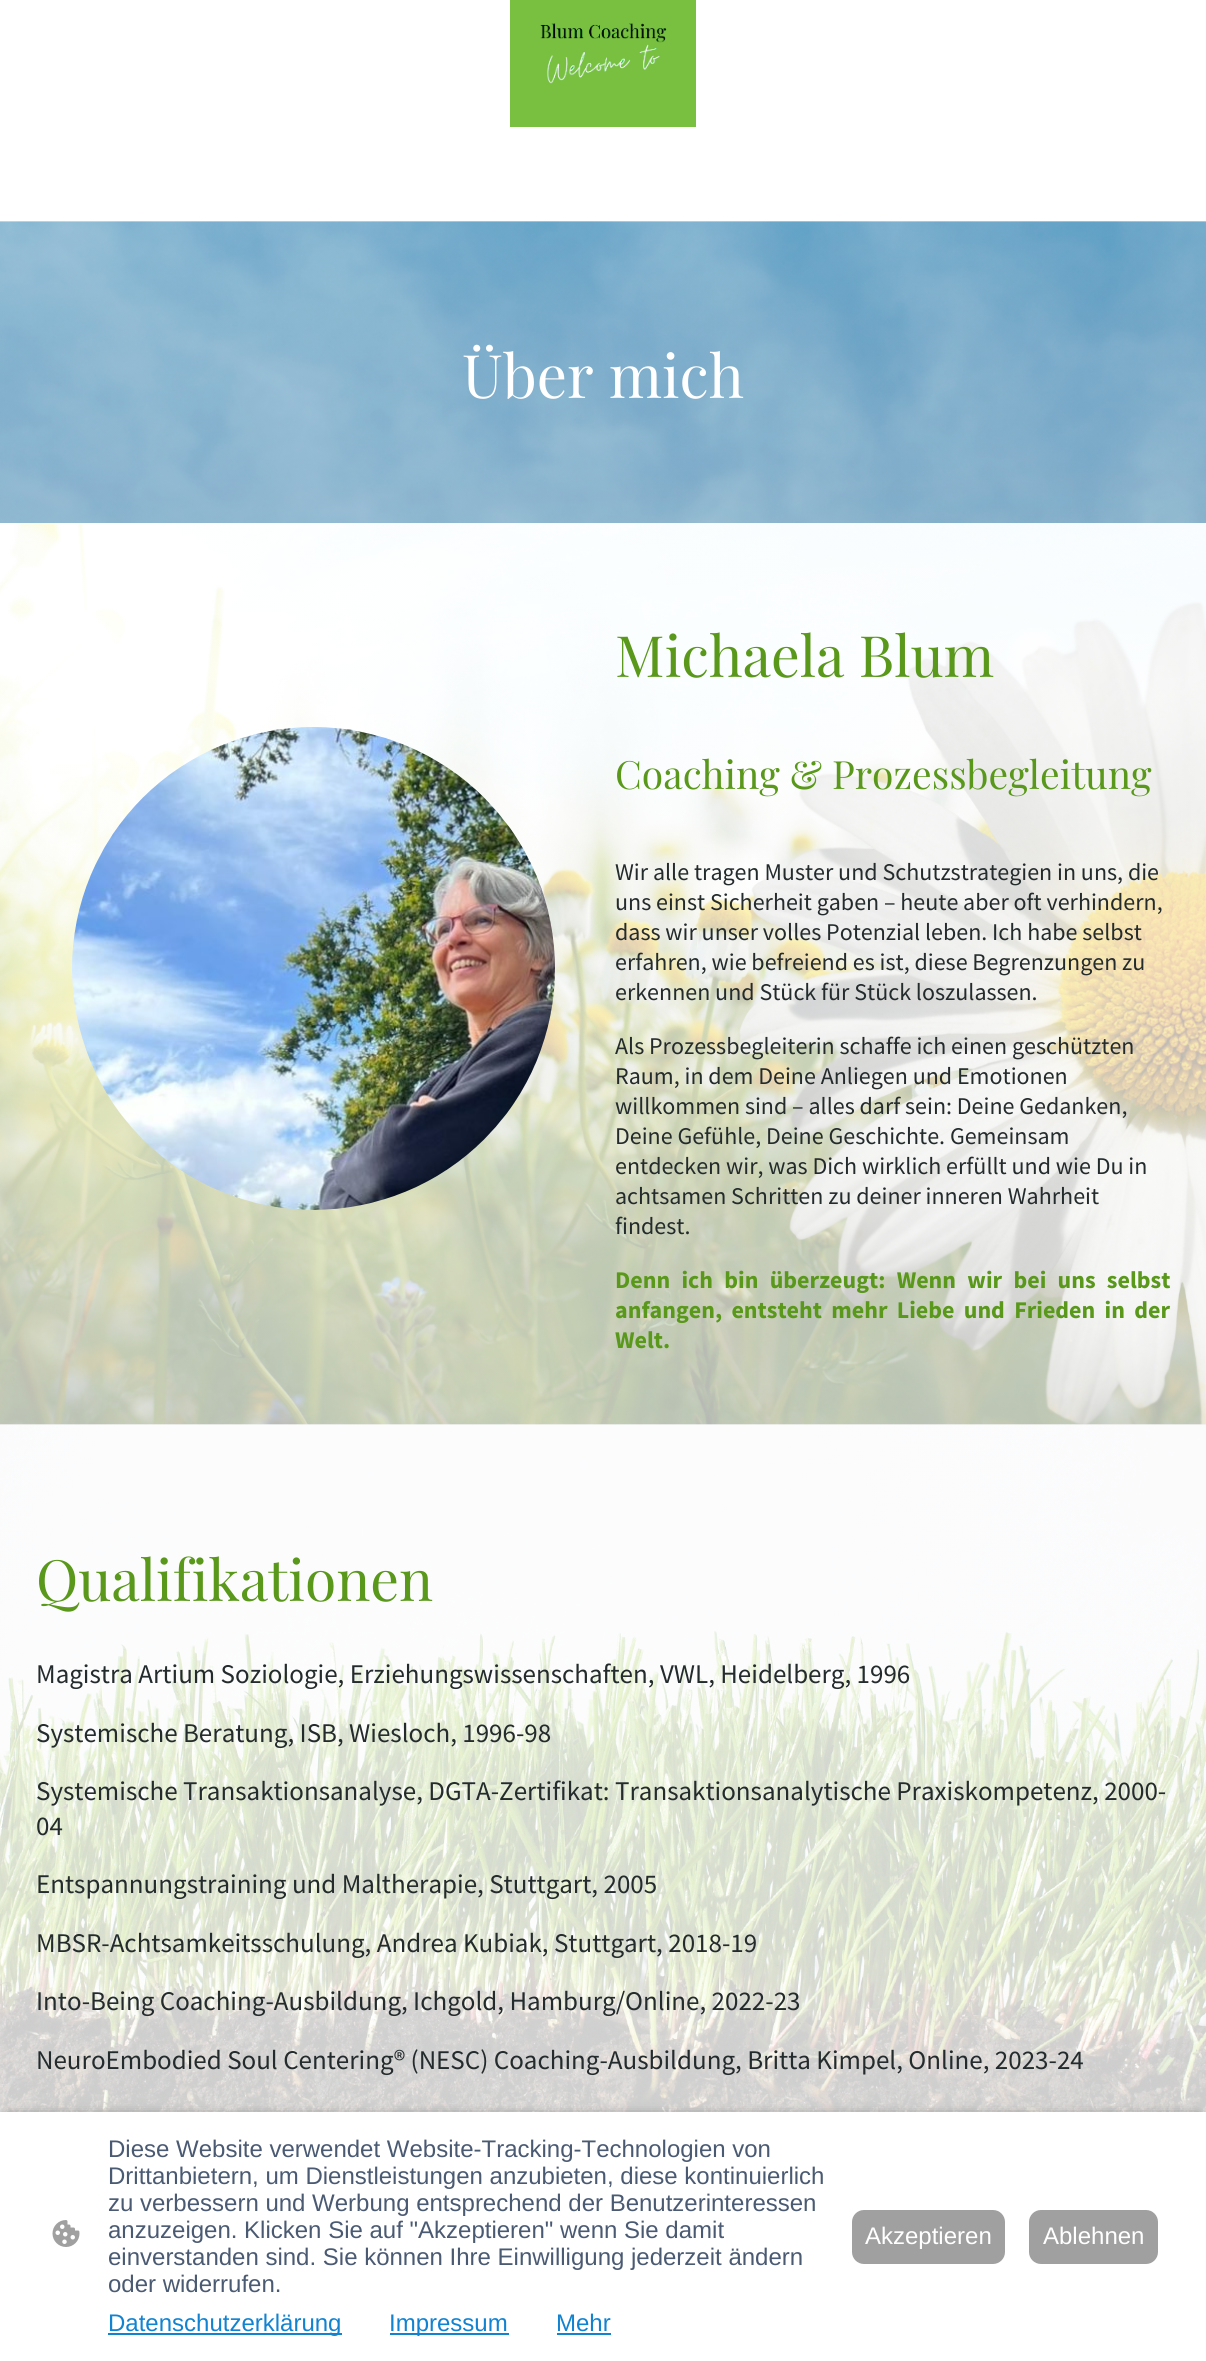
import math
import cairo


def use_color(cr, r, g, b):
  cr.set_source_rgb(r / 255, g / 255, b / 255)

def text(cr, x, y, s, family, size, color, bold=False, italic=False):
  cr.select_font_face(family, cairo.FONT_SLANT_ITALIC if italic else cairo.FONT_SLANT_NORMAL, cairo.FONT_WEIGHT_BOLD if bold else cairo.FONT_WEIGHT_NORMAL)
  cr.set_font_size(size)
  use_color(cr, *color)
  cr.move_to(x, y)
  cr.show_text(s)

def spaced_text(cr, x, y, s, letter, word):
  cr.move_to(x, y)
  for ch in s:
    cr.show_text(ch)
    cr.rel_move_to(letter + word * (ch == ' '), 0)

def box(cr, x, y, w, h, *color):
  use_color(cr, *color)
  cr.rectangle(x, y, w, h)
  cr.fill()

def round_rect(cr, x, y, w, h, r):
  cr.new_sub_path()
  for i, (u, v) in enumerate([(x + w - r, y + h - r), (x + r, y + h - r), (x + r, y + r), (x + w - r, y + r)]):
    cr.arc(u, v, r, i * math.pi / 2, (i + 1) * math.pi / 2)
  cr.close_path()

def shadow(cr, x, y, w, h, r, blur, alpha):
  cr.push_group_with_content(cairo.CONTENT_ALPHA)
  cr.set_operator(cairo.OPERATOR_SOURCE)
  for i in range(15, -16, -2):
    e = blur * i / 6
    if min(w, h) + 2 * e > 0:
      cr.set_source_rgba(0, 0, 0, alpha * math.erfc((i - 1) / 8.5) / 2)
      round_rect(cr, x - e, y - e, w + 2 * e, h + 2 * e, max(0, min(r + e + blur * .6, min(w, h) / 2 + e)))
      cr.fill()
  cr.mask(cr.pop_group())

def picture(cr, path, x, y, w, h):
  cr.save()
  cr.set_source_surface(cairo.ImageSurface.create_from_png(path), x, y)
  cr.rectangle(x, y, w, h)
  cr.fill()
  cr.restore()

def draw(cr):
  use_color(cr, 255, 255, 255)
  cr.paint()
  picture(cr, "img_01.png", 510, 0, 186, 127)
  picture(cr, "img_02.png", 0, 221, 1206, 302)
  picture(cr, "img_03.png", 0, 523, 1206, 902)
  picture(cr, "img_04.png", 72, 727, 483, 483)
  picture(cr, "img_05.png", 0, 1424, 1206, 688)
  use_color(cr, 0, 0, 0)
  shadow(cr, 9, 2117, 1188, 231, 0, 6, 0.63)
  box(cr, 0, 2112, 1206, 249, 255, 255, 255)
  picture(cr, "img_06.png", 52, 2220, 28, 27)
  box(cr, 108, 2333, 234, 2, 17, 131, 209)
  box(cr, 390, 2333, 119, 2, 17, 131, 209)
  box(cr, 557, 2333, 54, 2, 17, 131, 209)
  use_color(cr, 160, 160, 160)
  round_rect(cr, 853, 2211, 151, 52, 11)
  cr.fill_preserve()
  cr.stroke()
  round_rect(cr, 1030, 2211, 127, 52, 11)
  cr.fill_preserve()
  cr.stroke()
  text(cr, 462, 398, "Über mich", "Playfair Display", 60, (255, 255, 255))
  text(cr, 615, 677, "Michaela Blum", "Playfair Display", 57, (89, 152, 26))
  text(cr, 615, 789, "Coaching & Prozessbegleitung", "Playfair Display", 39, (89, 152, 26))
  text(cr, 615, 880, "Wir alle tragen Muster und Schutzstrategien in uns, die", "Source Sans Pro", 24, (36, 43, 44))
  text(cr, 615, 910, "uns einst Sicherheit gaben – heute aber oft verhindern,", "Source Sans Pro", 24, (36, 43, 44))
  text(cr, 615, 940, "dass wir unser volles Potenzial leben. Ich habe selbst", "Source Sans Pro", 24, (36, 43, 44))
  text(cr, 615, 970, "erfahren, wie befreiend es ist, diese Begrenzungen zu", "Source Sans Pro", 24, (36, 43, 44))
  text(cr, 615, 1000, "erkennen und Stück für Stück loszulassen.", "Source Sans Pro", 24, (36, 43, 44))
  text(cr, 615, 1054, "Als Prozessbegleiterin schaffe ich einen geschützten", "Source Sans Pro", 24, (36, 43, 44))
  text(cr, 615, 1084, "Raum, in dem Deine Anliegen und Emotionen", "Source Sans Pro", 24, (36, 43, 44))
  text(cr, 615, 1114, "willkommen sind – alles darf sein: Deine Gedanken,", "Source Sans Pro", 24, (36, 43, 44))
  text(cr, 615, 1144, "Deine Gefühle, Deine Geschichte. Gemeinsam", "Source Sans Pro", 24, (36, 43, 44))
  text(cr, 615, 1174, "entdecken wir, was Dich wirklich erfüllt und wie Du in", "Source Sans Pro", 24, (36, 43, 44))
  text(cr, 615, 1204, "achtsamen Schritten zu deiner inneren Wahrheit", "Source Sans Pro", 24, (36, 43, 44))
  text(cr, 615, 1234, "findest.", "Source Sans Pro", 24, (36, 43, 44))
  cr.select_font_face("Source Sans Pro", cairo.FONT_SLANT_NORMAL, cairo.FONT_WEIGHT_BOLD)
  use_color(cr, 89, 152, 26)
  spaced_text(cr, 615, 1288, "Denn ich bin überzeugt: Wenn wir bei uns selbst", 0, 6.5)
  spaced_text(cr, 615, 1318, "anfangen, entsteht mehr Liebe und Frieden in der", 0, 4.5)
  text(cr, 615, 1348, "Welt.", "Source Sans Pro", 24, (89, 152, 26), bold=True)
  text(cr, 36, 1601, "Qualifikationen", "Playfair Display", 57, (89, 152, 26))
  text(cr, 36, 1683, "Magistra Artium Soziologie, Erziehungswissenschaften, VWL, Heidelberg, 1996", "Source Sans Pro", 27, (36, 43, 44))
  text(cr, 36, 1742, "Systemische Beratung, ISB, Wiesloch, 1996-98", "Source Sans Pro", 27, (36, 43, 44))
  text(cr, 36, 1800, "Systemische Transaktionsanalyse, DGTA-Zertifikat: Transaktionsanalytische Praxiskompetenz, 2000-", "Source Sans Pro", 27, (36, 43, 44))
  text(cr, 36, 1835, "04", "Source Sans Pro", 27, (36, 43, 44))
  text(cr, 36, 1893, "Entspannungstraining und Maltherapie, Stuttgart, 2005", "Source Sans Pro", 27, (36, 43, 44))
  text(cr, 36, 1952, "MBSR-Achtsamkeitsschulung, Andrea Kubiak, Stuttgart, 2018-19", "Source Sans Pro", 27, (36, 43, 44))
  text(cr, 36, 2010, "Into-Being Coaching-Ausbildung, Ichgold, Hamburg/Online, 2022-23", "Source Sans Pro", 27, (36, 43, 44))
  text(cr, 36, 2069, "NeuroEmbodied Soul Centering® (NESC) Coaching-Ausbildung, Britta Kimpel, Online, 2023-24", "Source Sans Pro", 27, (36, 43, 44))
  text(cr, 108, 2157, "Diese Website verwendet Website-Tracking-Technologien von", "Liberation Sans", 24, (74, 90, 115))
  text(cr, 108, 2184, "Drittanbietern, um Dienstleistungen anzubieten, diese kontinuierlich", "Liberation Sans", 24, (74, 90, 115))
  text(cr, 108, 2211, "zu verbessern und Werbung entsprechend der Benutzerinteressen", "Liberation Sans", 24, (74, 90, 115))
  text(cr, 108, 2238, "anzuzeigen. Klicken Sie auf \"Akzeptieren\" wenn Sie damit", "Liberation Sans", 24, (74, 90, 115))
  text(cr, 108, 2265, "einverstanden sind. Sie können Ihre Einwilligung jederzeit ändern", "Liberation Sans", 24, (74, 90, 115))
  text(cr, 108, 2292, "oder widerrufen.", "Liberation Sans", 24, (74, 90, 115))
  text(cr, 108, 2331, "Datenschutzerklärung", "Liberation Sans", 24, (17, 131, 209))
  text(cr, 389, 2331, "Impressum", "Liberation Sans", 24, (17, 131, 209))
  text(cr, 556, 2331, "Mehr", "Liberation Sans", 24, (17, 131, 209))
  text(cr, 865, 2244, "Akzeptieren", "Liberation Sans", 24, (255, 255, 255))
  text(cr, 1043, 2244, "Ablehnen", "Liberation Sans", 24, (255, 255, 255))


surface = cairo.ImageSurface(cairo.FORMAT_RGB24, 1206, 2361)
cr = cairo.Context(surface)
options = cairo.FontOptions()
options.set_hint_metrics(cairo.HINT_METRICS_OFF)
options.set_hint_style(cairo.HINT_STYLE_NONE)
cr.set_font_options(options)
cr.set_miter_limit(4)
draw(cr)
surface.write_to_png("out.png")
